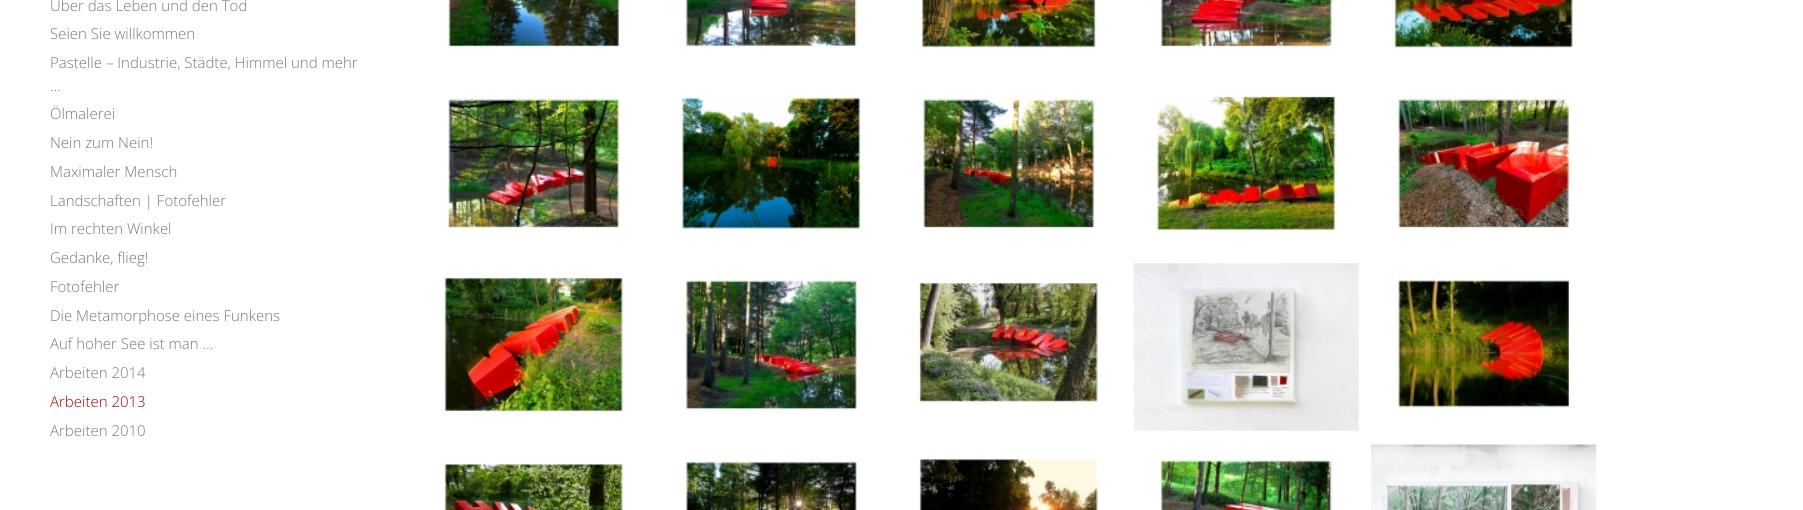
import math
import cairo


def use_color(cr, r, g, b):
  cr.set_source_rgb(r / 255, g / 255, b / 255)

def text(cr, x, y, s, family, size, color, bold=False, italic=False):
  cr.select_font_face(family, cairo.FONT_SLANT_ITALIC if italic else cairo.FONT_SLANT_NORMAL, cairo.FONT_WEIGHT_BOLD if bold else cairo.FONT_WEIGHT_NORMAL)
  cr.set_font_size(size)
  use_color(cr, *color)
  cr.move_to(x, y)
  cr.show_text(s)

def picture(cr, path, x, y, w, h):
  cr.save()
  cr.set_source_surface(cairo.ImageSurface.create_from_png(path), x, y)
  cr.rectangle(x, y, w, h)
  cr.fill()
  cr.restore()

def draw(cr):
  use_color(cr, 255, 255, 255)
  cr.paint()
  picture(cr, "img_01.png", 447, 0, 173, 48)
  picture(cr, "img_02.png", 685, 0, 173, 47)
  picture(cr, "img_03.png", 920, 0, 177, 49)
  picture(cr, "img_04.png", 1160, 0, 173, 49)
  picture(cr, "img_05.png", 1393, 0, 181, 49)
  picture(cr, "img_06.png", 447, 98, 173, 131)
  picture(cr, "img_07.png", 680, 95, 182, 136)
  picture(cr, "img_08.png", 922, 98, 173, 131)
  picture(cr, "img_09.png", 1155, 95, 183, 136)
  picture(cr, "img_10.png", 1397, 98, 174, 131)
  picture(cr, "img_11.png", 443, 277, 182, 136)
  picture(cr, "img_12.png", 685, 279, 173, 131)
  picture(cr, "img_13.png", 917, 282, 183, 122)
  picture(cr, "img_14.png", 1133, 263, 226, 168)
  picture(cr, "img_15.png", 1397, 279, 173, 130)
  picture(cr, "img_16.png", 443, 463, 182, 47)
  picture(cr, "img_17.png", 685, 461, 172, 49)
  picture(cr, "img_18.png", 919, 458, 180, 52)
  picture(cr, "img_19.png", 1160, 459, 173, 51)
  picture(cr, "img_20.png", 1371, 444, 226, 66)
  text(cr, 50, 11, "Über das Leben und den Tod", "Open Sans Light", 15, (119, 119, 119))
  text(cr, 50, 39, "Seien Sie willkommen", "Open Sans Light", 15, (119, 119, 119))
  text(cr, 50, 68, "Pastelle – Industrie, Städte, Himmel und mehr", "Open Sans Light", 15, (119, 119, 119))
  text(cr, 50, 91, "…", "Open Sans Light", 15, (119, 119, 119))
  text(cr, 50, 119, "Ölmalerei", "Open Sans Light", 15, (119, 119, 119))
  text(cr, 50, 148, "Nein zum Nein!", "Open Sans Light", 15, (119, 119, 119))
  text(cr, 50, 177, "Maximaler Mensch", "Open Sans Light", 15, (119, 119, 119))
  text(cr, 50, 206, "Landschaften | Fotofehler", "Open Sans Light", 15, (119, 119, 119))
  text(cr, 50, 234, "Im rechten Winkel", "Open Sans Light", 15, (119, 119, 119))
  text(cr, 50, 263, "Gedanke, flieg!", "Open Sans Light", 15, (119, 119, 119))
  text(cr, 50, 292, "Fotofehler", "Open Sans Light", 15, (119, 119, 119))
  text(cr, 50, 321, "Die Metamorphose eines Funkens", "Open Sans Light", 15, (119, 119, 119))
  text(cr, 50, 349, "Auf hoher See ist man …", "Open Sans Light", 15, (119, 119, 119))
  text(cr, 50, 378, "Arbeiten 2014", "Open Sans Light", 15, (119, 119, 119))
  text(cr, 50, 407, "Arbeiten 2013", "Open Sans Light", 15, (157, 0, 0))
  text(cr, 50, 436, "Arbeiten 2010", "Open Sans Light", 15, (119, 119, 119))


surface = cairo.ImageSurface(cairo.FORMAT_RGB24, 1803, 510)
cr = cairo.Context(surface)
options = cairo.FontOptions()
options.set_hint_metrics(cairo.HINT_METRICS_OFF)
options.set_hint_style(cairo.HINT_STYLE_NONE)
cr.set_font_options(options)
cr.set_miter_limit(4)
draw(cr)
surface.write_to_png("out.png")
